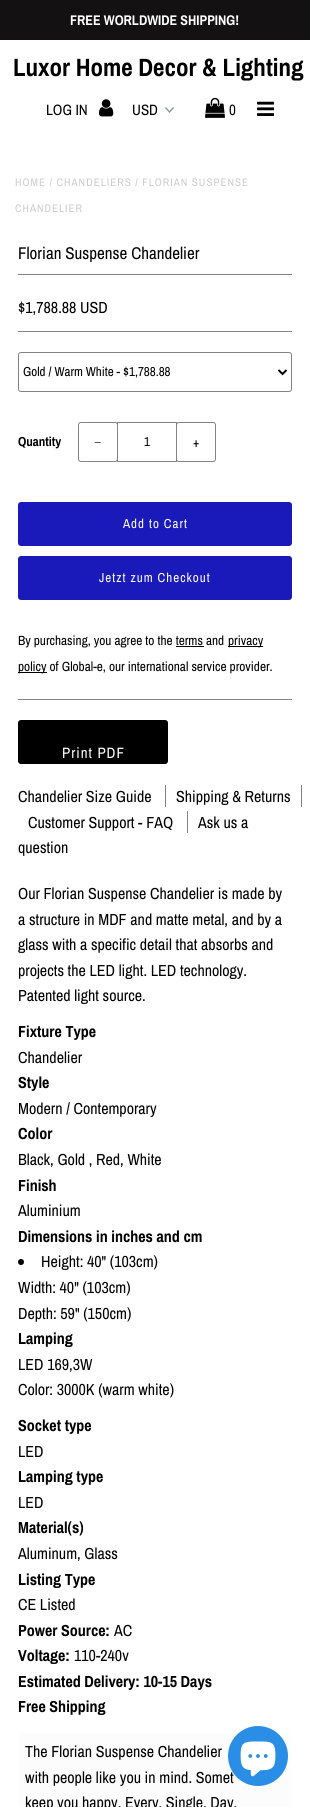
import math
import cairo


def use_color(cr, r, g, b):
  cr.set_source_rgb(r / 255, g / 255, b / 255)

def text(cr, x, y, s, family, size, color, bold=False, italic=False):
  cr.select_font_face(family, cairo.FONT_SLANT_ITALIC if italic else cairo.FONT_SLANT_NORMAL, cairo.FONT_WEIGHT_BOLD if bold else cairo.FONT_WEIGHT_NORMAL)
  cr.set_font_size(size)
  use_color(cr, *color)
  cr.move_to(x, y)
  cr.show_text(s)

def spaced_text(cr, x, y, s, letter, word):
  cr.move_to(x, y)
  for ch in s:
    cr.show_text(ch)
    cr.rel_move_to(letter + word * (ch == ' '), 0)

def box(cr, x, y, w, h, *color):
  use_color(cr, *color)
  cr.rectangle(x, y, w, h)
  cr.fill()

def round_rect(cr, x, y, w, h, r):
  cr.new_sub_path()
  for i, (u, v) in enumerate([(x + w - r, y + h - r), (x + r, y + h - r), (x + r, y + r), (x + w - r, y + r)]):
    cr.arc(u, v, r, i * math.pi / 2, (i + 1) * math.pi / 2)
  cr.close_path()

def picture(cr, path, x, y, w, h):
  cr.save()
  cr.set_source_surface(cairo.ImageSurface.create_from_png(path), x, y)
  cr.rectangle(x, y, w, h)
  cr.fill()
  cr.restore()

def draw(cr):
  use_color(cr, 255, 255, 255)
  cr.paint()
  box(cr, 0, 0, 310, 40, 19, 17, 17)
  picture(cr, "img_01.png", 99, 99, 15, 18)
  picture(cr, "img_02.png", 165, 107, 9, 6)
  picture(cr, "img_03.png", 205, 97, 20, 21)
  picture(cr, "img_04.png", 257, 101, 17, 15)
  box(cr, 18, 274, 274, 1, 131, 131, 131)
  box(cr, 18, 699, 274, 1, 131, 131, 131)
  box(cr, 18, 331, 274, 1, 131, 131, 131)
  round_rect(cr, 18.5, 352.5, 273, 39, 2.5)
  cr.set_line_width(1)
  cr.stroke()
  cr.new_path()
  cr.move_to(278.5, 370)
  cr.line_to(282.5, 374)
  cr.line_to(286.5, 370)
  use_color(cr, 0, 0, 0)
  cr.set_line_width(2)
  cr.stroke()
  round_rect(cr, 78.5, 422.5, 39, 39, 2.5)
  use_color(cr, 131, 131, 131)
  cr.set_line_width(1)
  cr.stroke()
  cr.rectangle(117.5, 422.5, 59, 39)
  cr.stroke()
  round_rect(cr, 176.5, 422.5, 39, 39, 2.5)
  cr.stroke()
  use_color(cr, 26, 25, 186)
  round_rect(cr, 18, 502, 274, 44, 3)
  cr.fill()
  round_rect(cr, 18, 556, 274, 44, 3)
  cr.fill()
  box(cr, 228, 646, 35, 1, 0, 0, 0)
  box(cr, 176, 646, 28, 1, 0, 0, 0)
  box(cr, 18, 672, 29, 1, 0, 0, 0)
  round_rect(cr, 18.5, 720.5, 149, 43, 2.5)
  cr.fill_preserve()
  cr.stroke()
  box(cr, 165, 785, 1, 22, 131, 131, 131)
  box(cr, 301, 785, 1, 22, 131, 131, 131)
  box(cr, 187, 811, 1, 22, 131, 131, 131)
  use_color(cr, 0, 0, 0)
  cr.arc(21, 1262, 3, 0, 2 * math.pi)
  cr.fill()
  use_color(cr, 252, 252, 252)
  round_rect(cr, 18.5, 1732.5, 273, 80, 4.5)
  cr.fill_preserve()
  use_color(cr, 255, 255, 255)
  cr.stroke()
  text(cr, 70, 25, "FREE WORLDWIDE SHIPPING!", "Archivo Narrow", 14, (255, 255, 255), bold=True)
  text(cr, 13, 76, "Luxor Home Decor & Lighting", "Archivo Narrow", 25, (0, 0, 0), bold=True)
  text(cr, 46, 115, "LOG IN", "Archivo Narrow", 15, (0, 0, 0))
  text(cr, 132, 115, "USD", "Archivo Narrow", 15, (0, 0, 0))
  text(cr, 229, 115, "0", "Archivo Narrow", 15, (0, 0, 0))
  cr.set_font_size(11)
  use_color(cr, 204, 204, 204)
  spaced_text(cr, 15, 186, "HOME / CHANDELIERS / FLORIAN SUSPENSE", 1, 0)
  spaced_text(cr, 15, 212, "CHANDELIER", 1, 0)
  text(cr, 18, 259, "Florian Suspense Chandelier", "Archivo Narrow", 17, (0, 0, 0))
  text(cr, 18, 313, "$1,788.88 USD", "Archivo Narrow", 16, (0, 0, 0))
  text(cr, 23, 376, "Gold / Warm White - $1,788.88", "Archivo Narrow", 13, (0, 0, 0))
  text(cr, 18, 446, "Quantity", "Archivo Narrow", 13, (0, 0, 0), bold=True)
  cr.select_font_face("Liberation Serif")
  spaced_text(cr, 94, 447, "−", 1, 0)
  text(cr, 144, 446, "1", "Archivo Narrow", 13, (0, 0, 0))
  spaced_text(cr, 193, 447, "+", 1, 0)
  use_color(cr, 255, 255, 255)
  spaced_text(cr, 123, 528, "Add to Cart", 1, 0)
  spaced_text(cr, 99, 582, "Jetzt zum Checkout", 1, 0)
  text(cr, 18, 645, "By purchasing, you agree to the terms and", "Archivo Narrow", 13.3, (0, 0, 0))
  text(cr, 228, 645, "privacy", "Archivo Narrow", 13.3, (0, 0, 0))
  text(cr, 18, 671, "policy of Global-e, our international service provider.", "Archivo Narrow", 13.3, (0, 0, 0))
  cr.set_font_size(15)
  use_color(cr, 255, 255, 255)
  spaced_text(cr, 62, 758, "Print PDF", 1, 0)
  text(cr, 18, 802, "Chandelier Size Guide", "Archivo Narrow", 16, (0, 0, 0))
  text(cr, 176, 802, "Shipping & Returns", "Archivo Narrow", 16, (0, 0, 0))
  text(cr, 28, 828, "Customer Support - FAQ", "Archivo Narrow", 16, (0, 0, 0))
  text(cr, 198, 828, "Ask us a", "Archivo Narrow", 16, (0, 0, 0))
  text(cr, 18, 853, "question", "Archivo Narrow", 16, (0, 0, 0))
  text(cr, 18, 899, "Our Florian Suspense Chandelier is made by", "Archivo Narrow", 16, (0, 0, 0))
  text(cr, 18, 925, "a structure in MDF and matte metal, and by a", "Archivo Narrow", 16, (0, 0, 0))
  text(cr, 18, 950, "glass with a specific detail that absorbs and", "Archivo Narrow", 16, (0, 0, 0))
  text(cr, 18, 976, "projects the LED light. LED technology.", "Archivo Narrow", 16, (0, 0, 0))
  text(cr, 18, 1001, "Patented light source.", "Archivo Narrow", 16, (0, 0, 0))
  text(cr, 18, 1037, "Fixture Type", "Archivo Narrow", 16, (0, 0, 0), bold=True)
  text(cr, 18, 1063, "Chandelier", "Archivo Narrow", 16, (0, 0, 0))
  text(cr, 18, 1088, "Style", "Archivo Narrow", 16, (0, 0, 0), bold=True)
  text(cr, 18, 1114, "Modern / Contemporary", "Archivo Narrow", 16, (0, 0, 0))
  text(cr, 18, 1139, "Color", "Archivo Narrow", 16, (0, 0, 0), bold=True)
  text(cr, 18, 1165, "Black, Gold , Red, White", "Archivo Narrow", 16, (0, 0, 0))
  text(cr, 18, 1191, "Finish", "Archivo Narrow", 16, (0, 0, 0), bold=True)
  text(cr, 18, 1216, "Aluminium", "Archivo Narrow", 16, (0, 0, 0))
  text(cr, 18, 1242, "Dimensions in inches and cm", "Archivo Narrow", 16, (0, 0, 0), bold=True)
  text(cr, 41, 1267, "Height: 40\" (103cm)", "Archivo Narrow", 16, (0, 0, 0))
  text(cr, 18, 1293, "Width: 40\" (103cm)", "Archivo Narrow", 16, (0, 0, 0))
  text(cr, 18, 1319, "Depth: 59\" (150cm)", "Archivo Narrow", 16, (0, 0, 0))
  text(cr, 18, 1344, "Lamping", "Archivo Narrow", 16, (0, 0, 0), bold=True)
  text(cr, 18, 1370, "LED 169,3W", "Archivo Narrow", 16, (0, 0, 0))
  text(cr, 18, 1395, "Color: 3000K (warm white)", "Archivo Narrow", 16, (0, 0, 0))
  text(cr, 18, 1431, "Socket type", "Archivo Narrow", 16, (0, 0, 0), bold=True)
  text(cr, 18, 1457, "LED", "Archivo Narrow", 16, (0, 0, 0))
  text(cr, 18, 1482, "Lamping type", "Archivo Narrow", 16, (0, 0, 0), bold=True)
  text(cr, 18, 1508, "LED", "Archivo Narrow", 16, (0, 0, 0))
  text(cr, 18, 1533, "Material(s)", "Archivo Narrow", 16, (0, 0, 0), bold=True)
  text(cr, 18, 1559, "Aluminum, Glass", "Archivo Narrow", 16, (0, 0, 0))
  text(cr, 18, 1585, "Listing Type", "Archivo Narrow", 16, (0, 0, 0), bold=True)
  text(cr, 18, 1610, "CE Listed", "Archivo Narrow", 16, (0, 0, 0))
  text(cr, 18, 1636, "Power Source:", "Archivo Narrow", 16, (0, 0, 0), bold=True)
  text(cr, 114, 1636, "AC", "Archivo Narrow", 16, (0, 0, 0))
  text(cr, 18, 1661, "Voltage:", "Archivo Narrow", 16, (0, 0, 0), bold=True)
  text(cr, 74, 1661, "110-240v", "Archivo Narrow", 16, (0, 0, 0))
  text(cr, 18, 1687, "Estimated Delivery: 10-15 Days", "Archivo Narrow", 16, (0, 0, 0), bold=True)
  text(cr, 18, 1712, "Free Shipping", "Archivo Narrow", 16, (0, 0, 0), bold=True)
  text(cr, 25, 1757, "The Florian Suspense Chandelier", "Archivo Narrow", 16, (0, 0, 0))
  text(cr, 25, 1783, "with people like you in mind. Somet", "Archivo Narrow", 16, (0, 0, 0))
  text(cr, 25, 1808, "keep you happy. Every. Single. Day.", "Archivo Narrow", 16, (0, 0, 0))
  use_color(cr, 42, 142, 231)
  cr.new_path()
  cr.arc(258, 1756, 30, 0, 2 * math.pi)
  cr.fill()
  picture(cr, "img_05.png", 240, 1741, 36, 36)


surface = cairo.ImageSurface(cairo.FORMAT_RGB24, 310, 1807)
cr = cairo.Context(surface)
options = cairo.FontOptions()
options.set_hint_metrics(cairo.HINT_METRICS_OFF)
options.set_hint_style(cairo.HINT_STYLE_NONE)
cr.set_font_options(options)
cr.set_miter_limit(4)
draw(cr)
surface.write_to_png("out.png")
